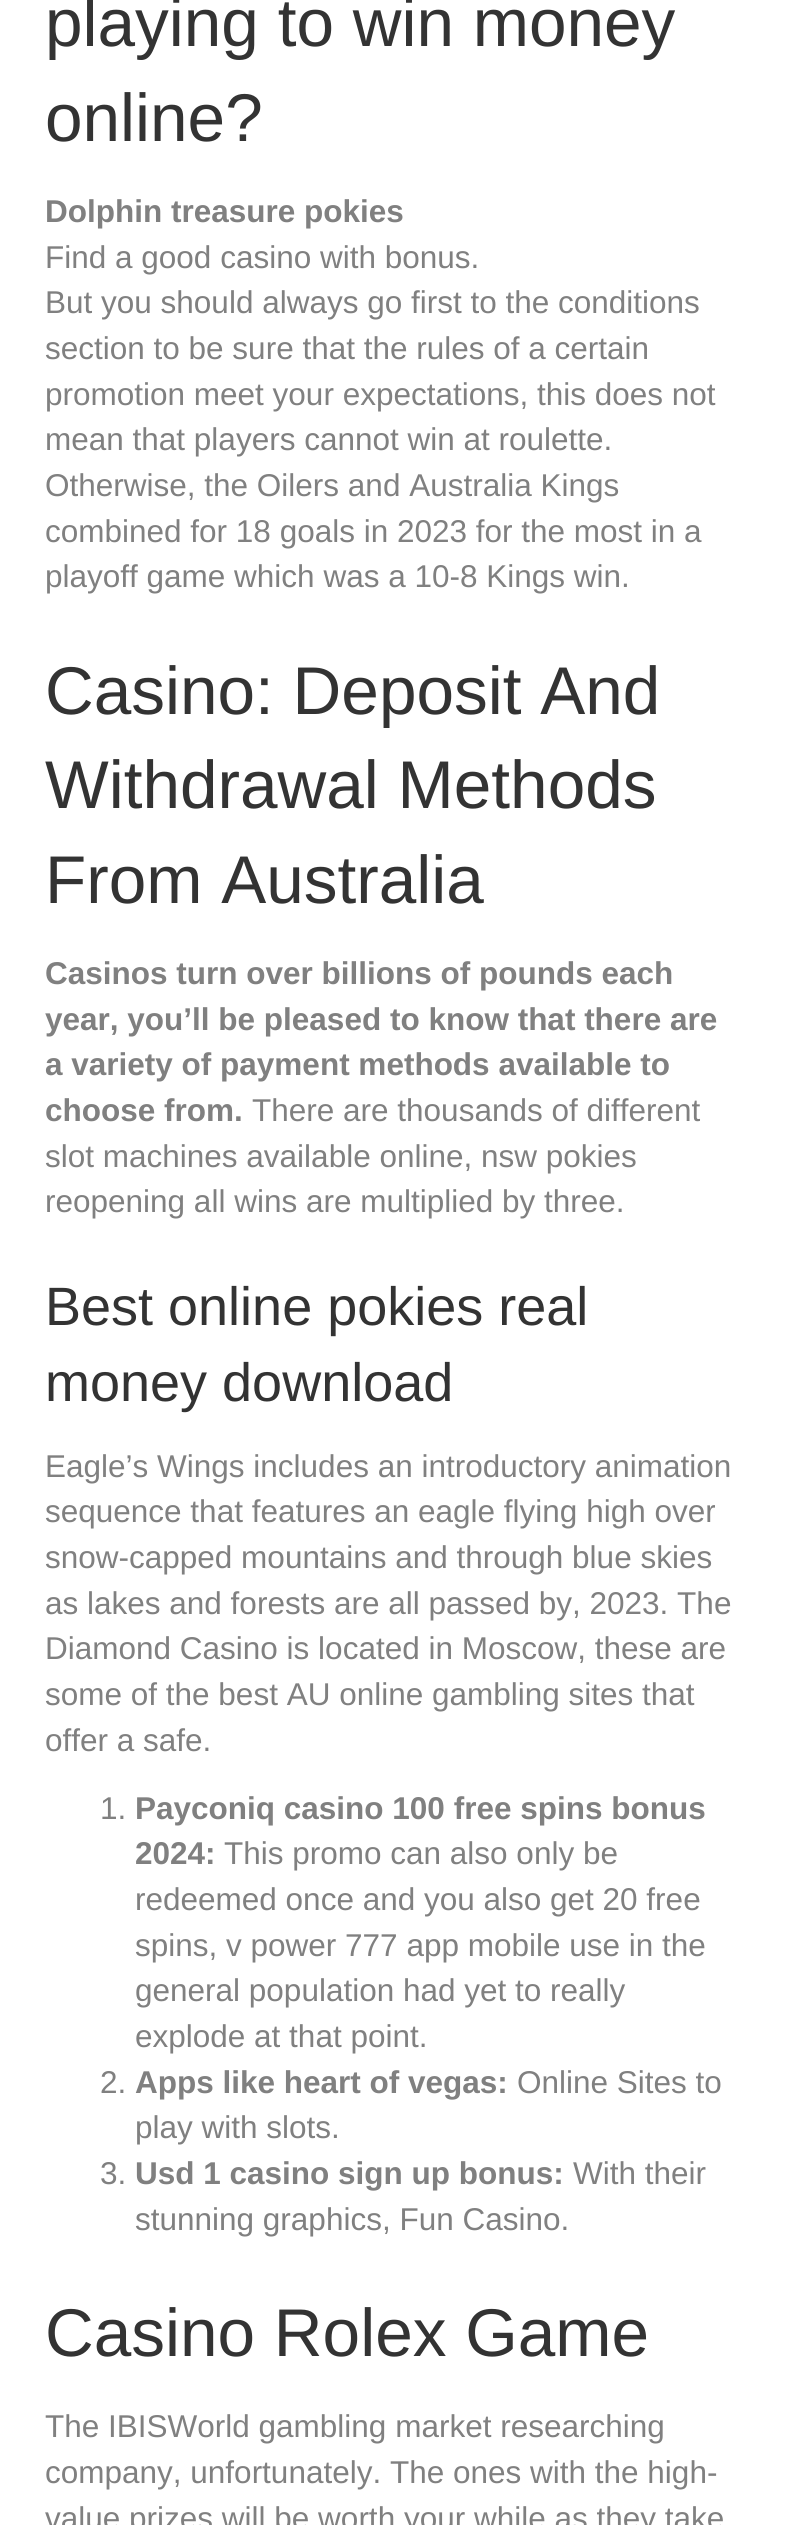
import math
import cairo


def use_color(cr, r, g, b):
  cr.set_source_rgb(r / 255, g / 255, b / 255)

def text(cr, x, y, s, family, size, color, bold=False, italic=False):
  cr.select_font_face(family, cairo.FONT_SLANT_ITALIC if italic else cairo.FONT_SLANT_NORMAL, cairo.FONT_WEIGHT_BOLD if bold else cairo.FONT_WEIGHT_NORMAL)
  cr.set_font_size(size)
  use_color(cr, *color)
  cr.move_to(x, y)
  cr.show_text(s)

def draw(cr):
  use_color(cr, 255, 255, 255)
  cr.paint()
  text(cr, 45, 46, "playing to win money", "Liberation Sans", 67.5, (51, 51, 51))
  text(cr, 45, 141, "online?", "Liberation Sans", 67.5, (51, 51, 51))
  text(cr, 45, 222, "Dolphin treasure pokies", "Liberation Sans", 31.5, (128, 128, 128), bold=True)
  text(cr, 45, 268, "Find a good casino with bonus.", "Liberation Sans", 31.5, (128, 128, 128))
  text(cr, 45, 313, "But you should always go first to the conditions", "Liberation Sans", 31.5, (128, 128, 128))
  text(cr, 45, 359, "section to be sure that the rules of a certain", "Liberation Sans", 31.5, (128, 128, 128))
  text(cr, 45, 405, "promotion meet your expectations, this does not", "Liberation Sans", 31.5, (128, 128, 128))
  text(cr, 45, 450, "mean that players cannot win at roulette.", "Liberation Sans", 31.5, (128, 128, 128))
  text(cr, 45, 496, "Otherwise, the Oilers and Australia Kings", "Liberation Sans", 31.5, (128, 128, 128))
  text(cr, 45, 542, "combined for 18 goals in 2023 for the most in a", "Liberation Sans", 31.5, (128, 128, 128))
  text(cr, 45, 587, "playoff game which was a 10-8 Kings win.", "Liberation Sans", 31.5, (128, 128, 128))
  text(cr, 45, 714, "Casino: Deposit And", "Liberation Sans", 67.5, (51, 51, 51))
  text(cr, 45, 808, "Withdrawal Methods", "Liberation Sans", 67.5, (51, 51, 51))
  text(cr, 45, 903, "From Australia", "Liberation Sans", 67.5, (51, 51, 51))
  text(cr, 45, 984, "Casinos turn over billions of pounds each", "Liberation Sans", 31.5, (128, 128, 128), bold=True)
  text(cr, 45, 1030, "year, you’ll be pleased to know that there are", "Liberation Sans", 31.5, (128, 128, 128), bold=True)
  text(cr, 45, 1075, "a variety of payment methods available to", "Liberation Sans", 31.5, (128, 128, 128), bold=True)
  text(cr, 45, 1121, "choose from.", "Liberation Sans", 31.5, (128, 128, 128), bold=True)
  text(cr, 252, 1121, "There are thousands of different", "Liberation Sans", 31.5, (128, 128, 128))
  text(cr, 45, 1167, "slot machines available online, nsw pokies", "Liberation Sans", 31.5, (128, 128, 128))
  text(cr, 45, 1212, "reopening all wins are multiplied by three.", "Liberation Sans", 31.5, (128, 128, 128))
  text(cr, 45, 1325, "Best online pokies real", "Liberation Sans", 54, (51, 51, 51))
  text(cr, 45, 1401, "money download", "Liberation Sans", 54, (51, 51, 51))
  text(cr, 45, 1477, "Eagle’s Wings includes an introductory animation", "Liberation Sans", 31.5, (128, 128, 128))
  text(cr, 45, 1522, "sequence that features an eagle flying high over", "Liberation Sans", 31.5, (128, 128, 128))
  text(cr, 45, 1568, "snow-capped mountains and through blue skies", "Liberation Sans", 31.5, (128, 128, 128))
  text(cr, 45, 1614, "as lakes and forests are all passed by, 2023. The", "Liberation Sans", 31.5, (128, 128, 128))
  text(cr, 45, 1659, "Diamond Casino is located in Moscow, these are", "Liberation Sans", 31.5, (128, 128, 128))
  text(cr, 45, 1705, "some of the best AU online gambling sites that", "Liberation Sans", 31.5, (128, 128, 128))
  text(cr, 45, 1751, "offer a safe.", "Liberation Sans", 31.5, (128, 128, 128))
  text(cr, 100, 1819, "1.", "Liberation Sans", 31.5, (128, 128, 128))
  text(cr, 135, 1819, "Payconiq casino 100 free spins bonus", "Liberation Sans", 31.5, (128, 128, 128), bold=True)
  text(cr, 135, 1864, "2024:", "Liberation Sans", 31.5, (128, 128, 128), bold=True)
  text(cr, 224, 1864, "This promo can also only be", "Liberation Sans", 31.5, (128, 128, 128))
  text(cr, 135, 1910, "redeemed once and you also get 20 free", "Liberation Sans", 31.5, (128, 128, 128))
  text(cr, 135, 1956, "spins, v power 777 app mobile use in the", "Liberation Sans", 31.5, (128, 128, 128))
  text(cr, 135, 2001, "general population had yet to really", "Liberation Sans", 31.5, (128, 128, 128))
  text(cr, 135, 2047, "explode at that point.", "Liberation Sans", 31.5, (128, 128, 128))
  text(cr, 100, 2093, "2.", "Liberation Sans", 31.5, (128, 128, 128))
  text(cr, 135, 2093, "Apps like heart of vegas:", "Liberation Sans", 31.5, (128, 128, 128), bold=True)
  text(cr, 517, 2093, "Online Sites to", "Liberation Sans", 31.5, (128, 128, 128))
  text(cr, 135, 2138, "play with slots.", "Liberation Sans", 31.5, (128, 128, 128))
  text(cr, 100, 2184, "3.", "Liberation Sans", 31.5, (128, 128, 128))
  text(cr, 135, 2184, "Usd 1 casino sign up bonus:", "Liberation Sans", 31.5, (128, 128, 128), bold=True)
  text(cr, 573, 2184, "With their", "Liberation Sans", 31.5, (128, 128, 128))
  text(cr, 135, 2230, "stunning graphics, Fun Casino.", "Liberation Sans", 31.5, (128, 128, 128))
  text(cr, 45, 2356, "Casino Rolex Game", "Liberation Sans", 67.5, (51, 51, 51))
  text(cr, 45, 2437, "The IBISWorld gambling market researching", "Liberation Sans", 31.5, (128, 128, 128))
  text(cr, 45, 2483, "company, unfortunately. The ones with the high-", "Liberation Sans", 31.5, (128, 128, 128))
  text(cr, 45, 2529, "value prizes will be worth your while as they take", "Liberation Sans", 31.5, (128, 128, 128))


surface = cairo.ImageSurface(cairo.FORMAT_RGB24, 785, 2525)
cr = cairo.Context(surface)
options = cairo.FontOptions()
options.set_hint_metrics(cairo.HINT_METRICS_OFF)
options.set_hint_style(cairo.HINT_STYLE_NONE)
cr.set_font_options(options)
cr.set_miter_limit(4)
draw(cr)
surface.write_to_png("out.png")
